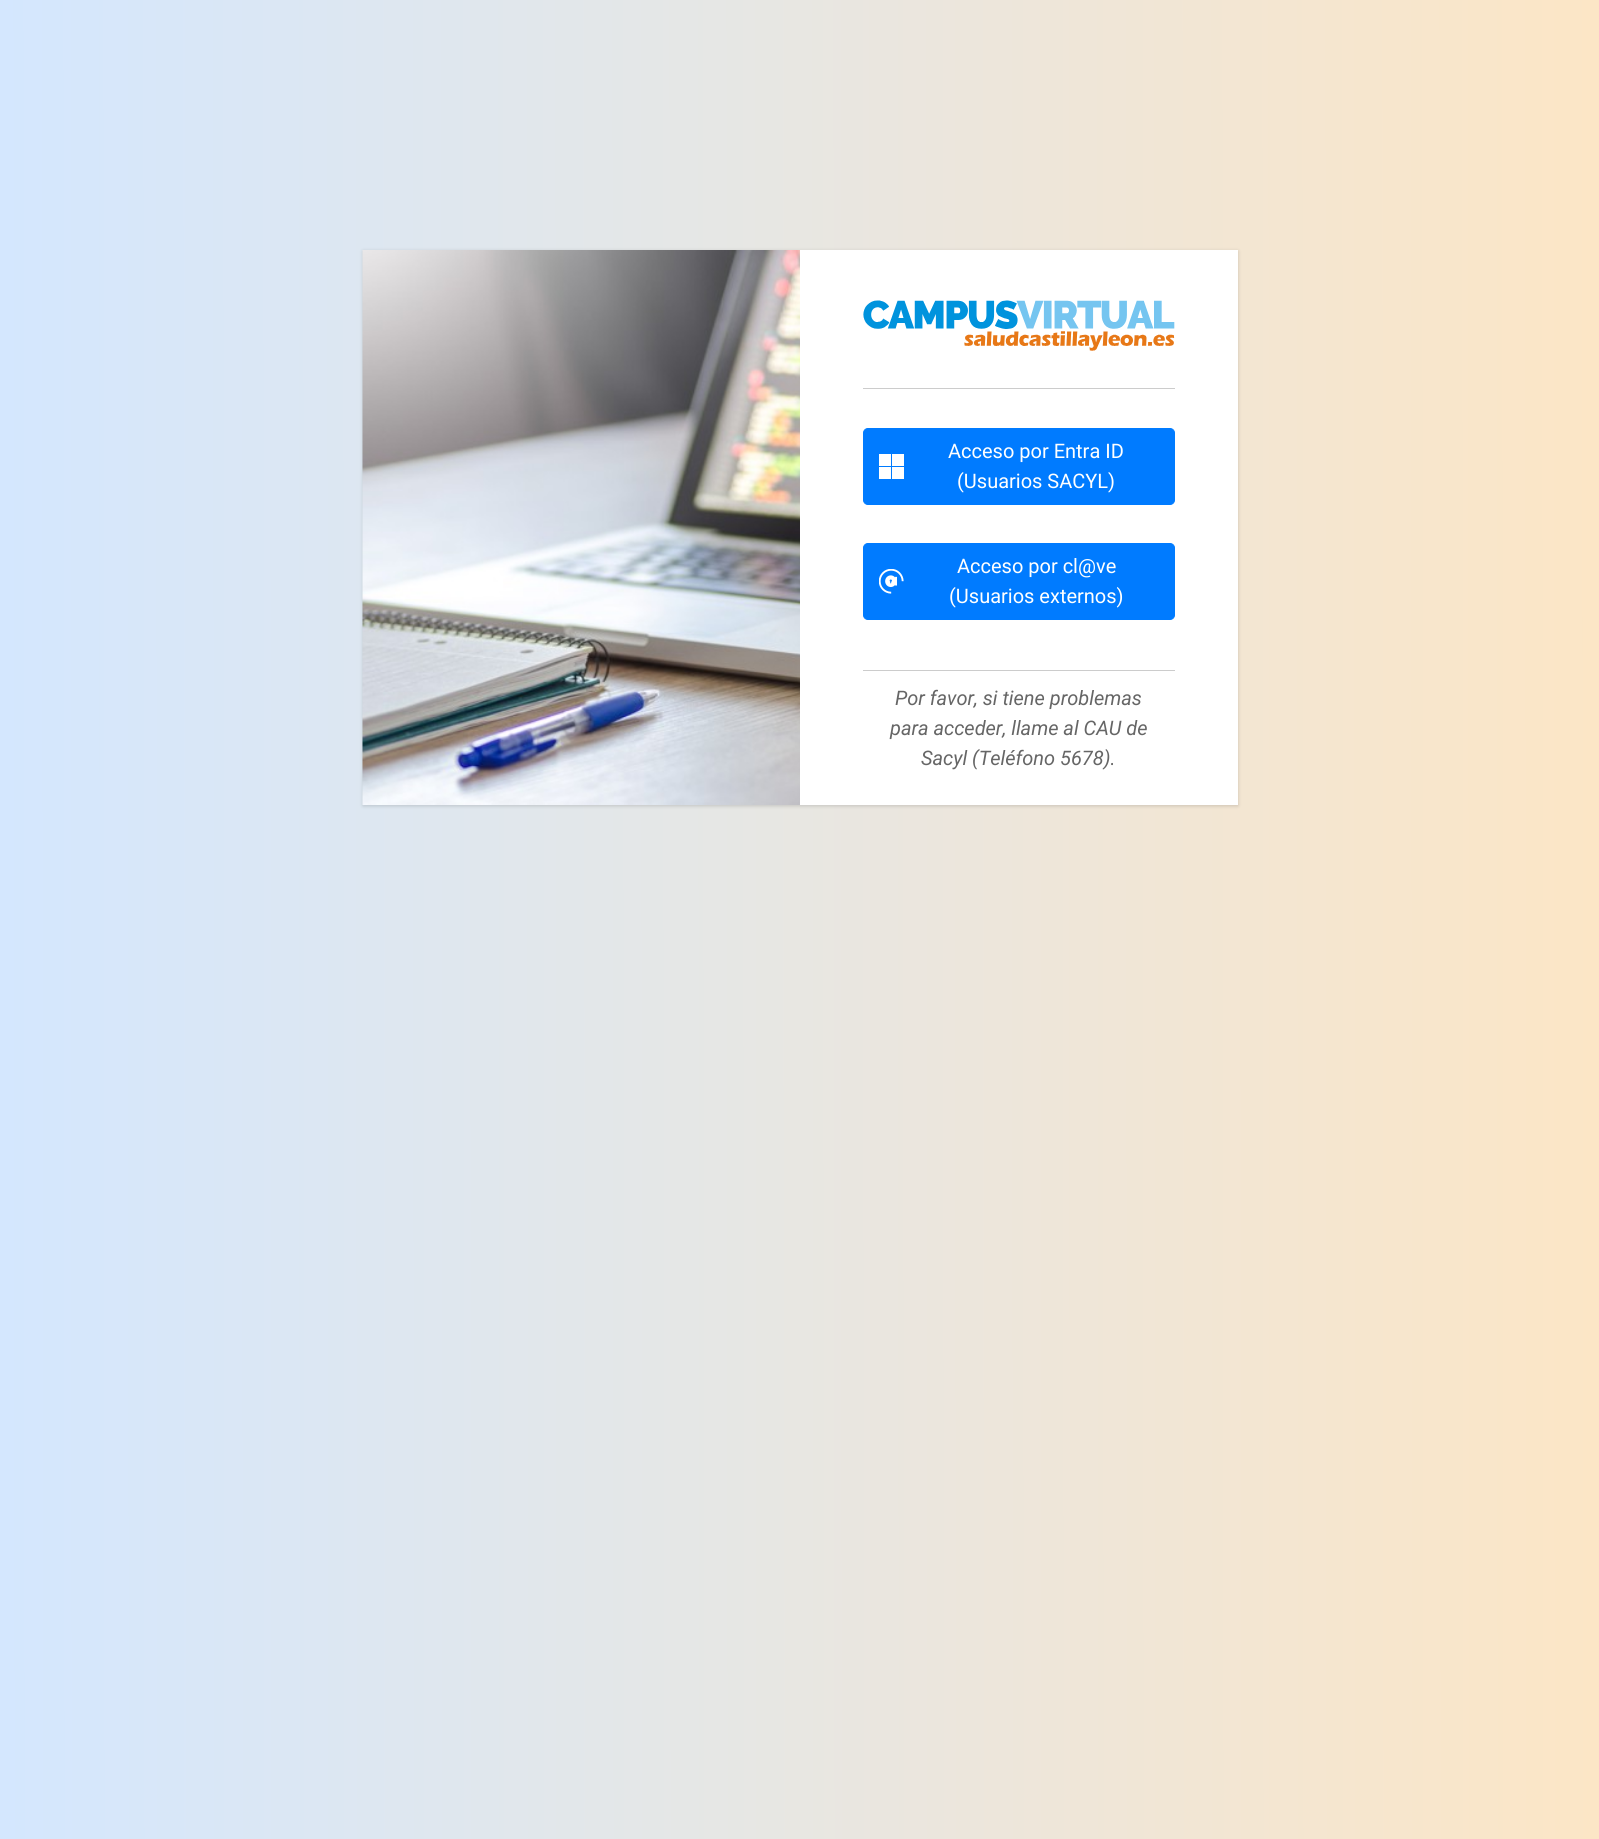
import math
import cairo


def use_color(cr, r, g, b):
  cr.set_source_rgb(r / 255, g / 255, b / 255)

def text(cr, x, y, s, family, size, color, bold=False, italic=False):
  cr.select_font_face(family, cairo.FONT_SLANT_ITALIC if italic else cairo.FONT_SLANT_NORMAL, cairo.FONT_WEIGHT_BOLD if bold else cairo.FONT_WEIGHT_NORMAL)
  cr.set_font_size(size)
  use_color(cr, *color)
  cr.move_to(x, y)
  cr.show_text(s)

def box(cr, x, y, w, h, *color):
  use_color(cr, *color)
  cr.rectangle(x, y, w, h)
  cr.fill()

def round_rect(cr, x, y, w, h, r):
  cr.new_sub_path()
  for i, (u, v) in enumerate([(x + w - r, y + h - r), (x + r, y + h - r), (x + r, y + r), (x + w - r, y + r)]):
    cr.arc(u, v, r, i * math.pi / 2, (i + 1) * math.pi / 2)
  cr.close_path()

def shadow(cr, x, y, w, h, r, blur, alpha):
  cr.push_group_with_content(cairo.CONTENT_ALPHA)
  cr.set_operator(cairo.OPERATOR_SOURCE)
  for i in range(15, -16, -2):
    e = blur * i / 6
    if min(w, h) + 2 * e > 0:
      cr.set_source_rgba(0, 0, 0, alpha * math.erfc((i - 1) / 8.5) / 2)
      round_rect(cr, x - e, y - e, w + 2 * e, h + 2 * e, max(0, min(r + e + blur * .6, min(w, h) / 2 + e)))
      cr.fill()
  cr.mask(cr.pop_group())

def picture(cr, path, x, y, w, h):
  cr.save()
  cr.set_source_surface(cairo.ImageSurface.create_from_png(path), x, y)
  cr.rectangle(x, y, w, h)
  cr.fill()
  cr.restore()

def draw(cr):
  use_color(cr, 255, 255, 255)
  cr.paint()
  gradient = cairo.LinearGradient(0, 403, 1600, 402)
  gradient.add_color_stop_rgba(0, 0.831, 0.906, 0.996, 1)
  gradient.add_color_stop_rgba(1, 0.988, 0.902, 0.776, 1)
  cr.set_source(gradient)
  cr.rectangle(0, 0, 1599, 1839)
  cr.fill()
  use_color(cr, 0, 0, 0)
  shadow(cr, 363, 251, 875, 555, 0, 2, 0.16)
  picture(cr, "img_01.png", 362, 250, 438, 555)
  box(cr, 800, 250, 438, 555, 255, 255, 255)
  picture(cr, "img_02.png", 863, 300, 312, 51)
  box(cr, 863, 388, 312, 1, 204, 204, 204)
  use_color(cr, 0, 123, 255)
  round_rect(cr, 863.5, 428.5, 311, 76, 4.5)
  cr.fill_preserve()
  cr.set_line_width(1)
  cr.stroke()
  box(cr, 892, 467, 12, 12, 255, 255, 255)
  box(cr, 892, 454, 12, 12, 255, 255, 255)
  box(cr, 879, 454, 12, 12, 255, 255, 255)
  box(cr, 879, 467, 12, 12, 255, 255, 255)
  use_color(cr, 0, 123, 255)
  round_rect(cr, 863.5, 543.5, 311, 76, 4.5)
  cr.fill_preserve()
  cr.stroke()
  picture(cr, "img_03.png", 879, 569, 25, 25)
  box(cr, 863, 670, 312, 1, 204, 204, 204)
  text(cr, 948, 458, "Acceso por Entra ID", "Roboto", 20, (255, 255, 255))
  text(cr, 957, 488, "(Usuarios SACYL)", "Roboto", 20, (255, 255, 255))
  text(cr, 957, 573, "Acceso por cl@ve", "Roboto", 20, (255, 255, 255))
  text(cr, 949, 603, "(Usuarios externos)", "Roboto", 20, (255, 255, 255))
  text(cr, 895, 705, "Por favor, si tiene problemas", "Roboto", 20, (102, 102, 102), italic=True)
  text(cr, 890, 735, "para acceder, llame al CAU de", "Roboto", 20, (102, 102, 102), italic=True)
  text(cr, 921, 765, "Sacyl (Teléfono 5678).", "Roboto", 20, (102, 102, 102), italic=True)


surface = cairo.ImageSurface(cairo.FORMAT_RGB24, 1599, 1839)
cr = cairo.Context(surface)
options = cairo.FontOptions()
options.set_hint_metrics(cairo.HINT_METRICS_OFF)
options.set_hint_style(cairo.HINT_STYLE_NONE)
cr.set_font_options(options)
cr.set_miter_limit(4)
draw(cr)
surface.write_to_png("out.png")
